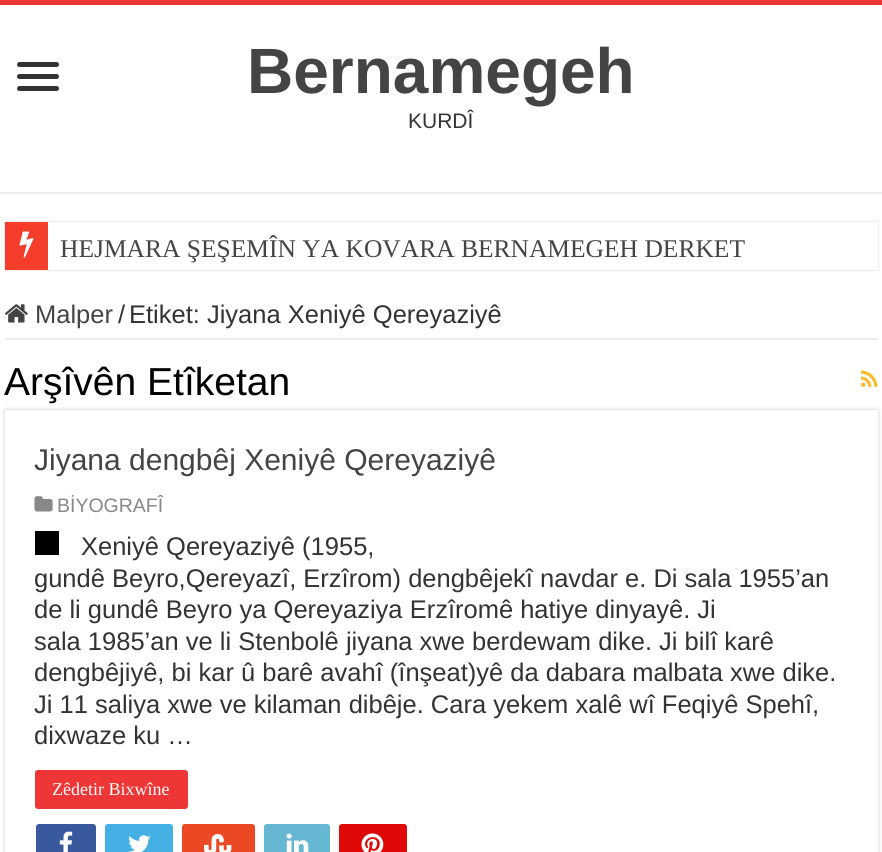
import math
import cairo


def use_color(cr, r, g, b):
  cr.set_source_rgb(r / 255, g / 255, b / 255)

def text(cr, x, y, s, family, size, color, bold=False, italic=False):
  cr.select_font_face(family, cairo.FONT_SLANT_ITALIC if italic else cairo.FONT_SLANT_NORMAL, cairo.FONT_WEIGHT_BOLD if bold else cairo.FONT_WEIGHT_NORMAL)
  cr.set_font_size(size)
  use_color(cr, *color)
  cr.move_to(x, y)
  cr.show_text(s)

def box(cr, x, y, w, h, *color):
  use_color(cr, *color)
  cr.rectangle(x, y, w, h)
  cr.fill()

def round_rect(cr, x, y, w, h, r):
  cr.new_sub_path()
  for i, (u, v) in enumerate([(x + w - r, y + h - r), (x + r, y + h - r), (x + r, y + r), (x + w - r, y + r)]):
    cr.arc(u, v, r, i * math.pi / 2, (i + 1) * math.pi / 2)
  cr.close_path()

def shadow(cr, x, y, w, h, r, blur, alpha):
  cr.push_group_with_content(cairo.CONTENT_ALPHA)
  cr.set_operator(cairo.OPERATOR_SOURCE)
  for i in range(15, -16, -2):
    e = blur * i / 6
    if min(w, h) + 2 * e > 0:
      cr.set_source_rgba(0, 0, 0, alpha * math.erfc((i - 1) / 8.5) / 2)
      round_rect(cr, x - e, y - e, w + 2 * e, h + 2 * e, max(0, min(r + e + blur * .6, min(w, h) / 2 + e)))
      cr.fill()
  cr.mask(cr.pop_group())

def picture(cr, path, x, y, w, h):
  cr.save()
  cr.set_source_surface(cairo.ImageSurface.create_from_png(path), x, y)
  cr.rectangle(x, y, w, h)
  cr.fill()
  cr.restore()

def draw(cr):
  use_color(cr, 255, 255, 255)
  cr.paint()
  cr.save()
  cr.rectangle(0, 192, 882, 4)
  cr.clip()
  use_color(cr, 202, 202, 202)
  shadow(cr, 0, 0, 882, 192, 0, 2, 1)
  cr.restore()
  box(cr, 0, 0, 882, 5, 239, 54, 54)
  use_color(cr, 51, 51, 51)
  round_rect(cr, 17, 62, 42, 5, 2.5)
  cr.fill()
  round_rect(cr, 17, 74, 42, 5, 2.5)
  cr.fill()
  round_rect(cr, 17, 86, 42, 5, 2.5)
  cr.fill()
  use_color(cr, 202, 202, 202)
  shadow(cr, 5, 222, 873, 48, 0, 1, 1)
  box(cr, 48, 222, 830, 48, 255, 255, 255)
  box(cr, 5, 222, 43, 48, 244, 61, 42)
  picture(cr, "img_01.png", 19, 231, 15, 27)
  box(cr, 5, 338, 873, 2, 238, 238, 238)
  picture(cr, "img_02.png", 4, 304, 24, 19)
  picture(cr, "img_03.png", 861, 370, 17, 17)
  use_color(cr, 202, 202, 202)
  shadow(cr, 5, 410, 873, 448, 0, 2, 1)
  box(cr, 5, 410, 873, 442, 255, 255, 255)
  picture(cr, "img_04.png", 34, 496, 19, 16)
  box(cr, 35, 531, 24, 24, 0, 0, 0)
  use_color(cr, 239, 54, 54)
  round_rect(cr, 35, 770, 153, 39, 3)
  cr.fill()
  use_color(cr, 57, 89, 159)
  round_rect(cr, 36, 824, 60, 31, 3)
  cr.fill()
  picture(cr, "img_05.png", 59, 831, 14, 21)
  use_color(cr, 69, 176, 227)
  round_rect(cr, 105, 824, 68, 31, 3)
  cr.fill()
  picture(cr, "img_06.png", 128, 835, 23, 17)
  use_color(cr, 235, 73, 36)
  round_rect(cr, 182, 824, 73, 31, 3)
  cr.fill()
  picture(cr, "img_07.png", 204, 834, 28, 18)
  use_color(cr, 101, 183, 210)
  round_rect(cr, 264, 824, 66, 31, 3)
  cr.fill()
  picture(cr, "img_08.png", 286, 833, 23, 19)
  use_color(cr, 224, 7, 7)
  round_rect(cr, 339, 824, 68, 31, 3)
  cr.fill()
  picture(cr, "img_09.png", 361, 833, 23, 19)
  text(cr, 247, 93, "Bernamegeh", "Liberation Sans", 64, (68, 68, 68), bold=True)
  text(cr, 408, 128, "KURDÎ", "Liberation Sans", 21, (51, 51, 51))
  text(cr, 60, 257, "HEJMARA ŞEŞEMÎN YA KOVARA BERNAMEGEH DERKET", "Liberation Serif", 25.5, (68, 68, 68))
  text(cr, 35, 323, "Malper", "Liberation Sans", 25.5, (68, 68, 68))
  text(cr, 118, 323, "/", "Liberation Sans", 25.5, (51, 51, 51))
  text(cr, 129, 323, "Etiket: Jiyana Xeniyê Qereyaziyê", "Liberation Sans", 25.5, (51, 51, 51))
  text(cr, 4, 395, "Arşîvên Etîketan", "Liberation Sans", 39, (0, 0, 0))
  text(cr, 34, 470, "Jiyana dengbêj Xeniyê Qereyaziyê", "Liberation Sans", 30, (68, 68, 68))
  text(cr, 57, 512, "BİYOGRAFÎ", "Liberation Sans", 19.5, (136, 136, 136))
  text(cr, 81, 555, "Xeniyê Qereyaziyê (1955,", "Liberation Sans", 25.5, (51, 51, 51))
  text(cr, 34, 587, "gundê Beyro,Qereyazî, Erzîrom) dengbêjekî navdar e. Di sala 1955’an", "Liberation Sans", 25.5, (51, 51, 51))
  text(cr, 34, 618, "de li gundê Beyro ya Qereyaziya Erzîromê hatiye dinyayê. Ji", "Liberation Sans", 25.5, (51, 51, 51))
  text(cr, 34, 650, "sala 1985’an ve li Stenbolê jiyana xwe berdewam dike. Ji bilî karê", "Liberation Sans", 25.5, (51, 51, 51))
  text(cr, 34, 681, "dengbêjiyê, bi kar û barê avahî (înşeat)yê da dabara malbata xwe dike.", "Liberation Sans", 25.5, (51, 51, 51))
  text(cr, 34, 713, "Ji 11 saliya xwe ve kilaman dibêje. Cara yekem xalê wî Feqiyê Spehî,", "Liberation Sans", 25.5, (51, 51, 51))
  text(cr, 34, 744, "dixwaze ku …", "Liberation Sans", 25.5, (51, 51, 51))
  text(cr, 52, 795, "Zêdetir Bixwîne", "Liberation Serif", 18, (255, 255, 255))


surface = cairo.ImageSurface(cairo.FORMAT_RGB24, 882, 852)
cr = cairo.Context(surface)
options = cairo.FontOptions()
options.set_hint_metrics(cairo.HINT_METRICS_OFF)
options.set_hint_style(cairo.HINT_STYLE_NONE)
cr.set_font_options(options)
cr.set_miter_limit(4)
draw(cr)
surface.write_to_png("out.png")
